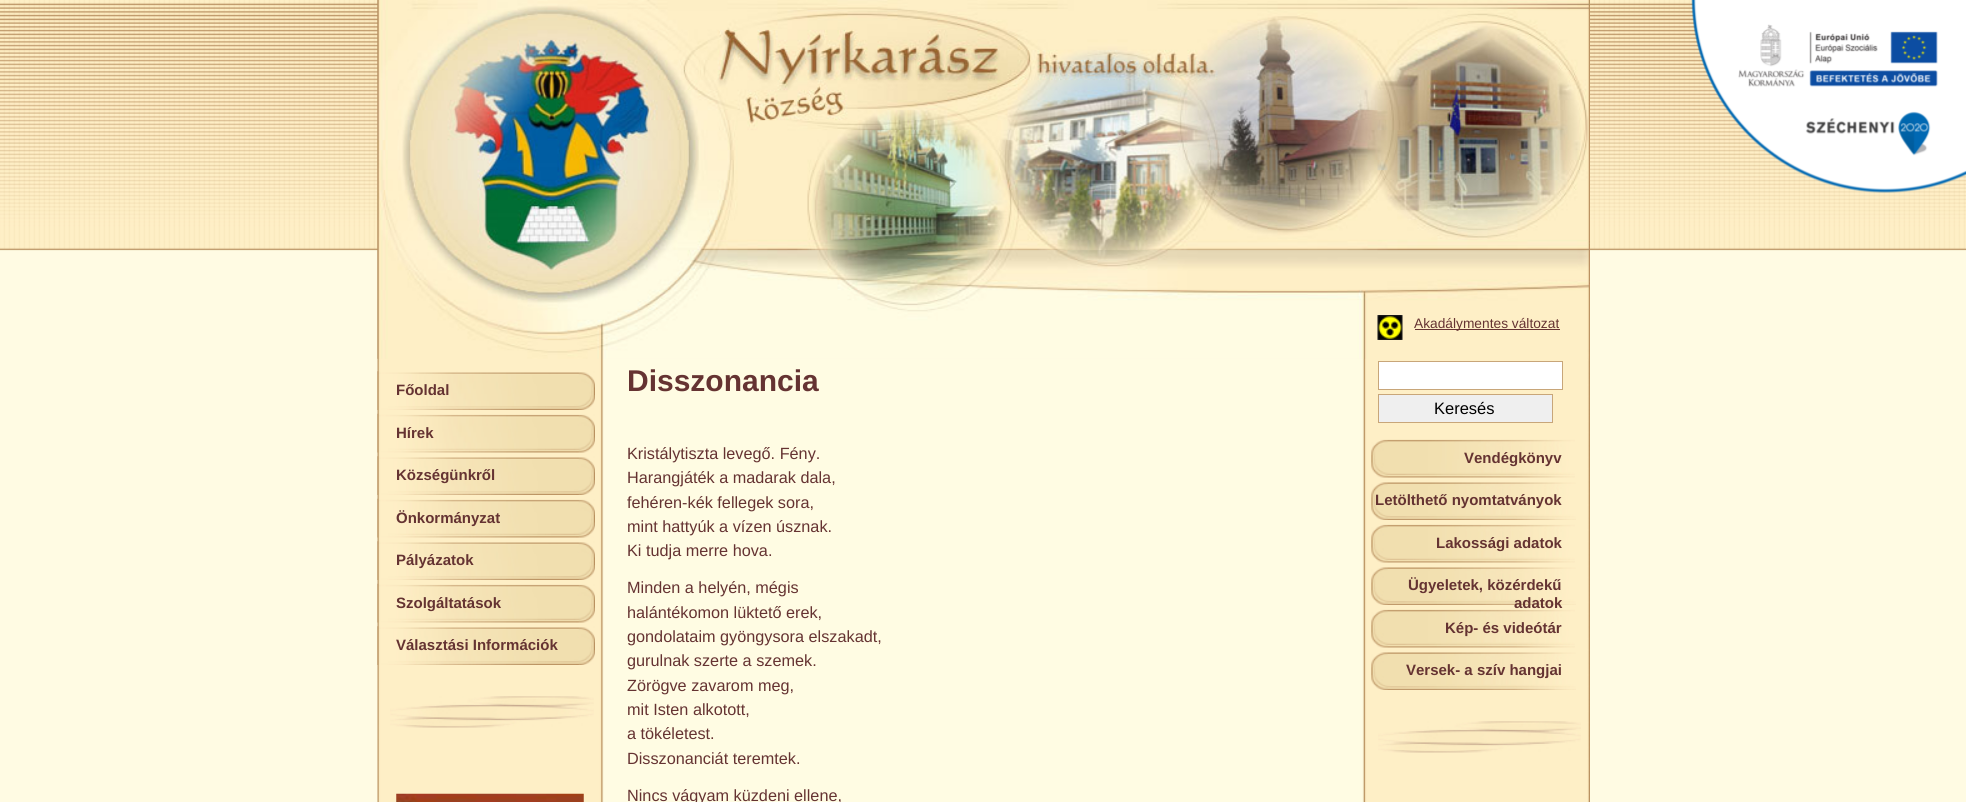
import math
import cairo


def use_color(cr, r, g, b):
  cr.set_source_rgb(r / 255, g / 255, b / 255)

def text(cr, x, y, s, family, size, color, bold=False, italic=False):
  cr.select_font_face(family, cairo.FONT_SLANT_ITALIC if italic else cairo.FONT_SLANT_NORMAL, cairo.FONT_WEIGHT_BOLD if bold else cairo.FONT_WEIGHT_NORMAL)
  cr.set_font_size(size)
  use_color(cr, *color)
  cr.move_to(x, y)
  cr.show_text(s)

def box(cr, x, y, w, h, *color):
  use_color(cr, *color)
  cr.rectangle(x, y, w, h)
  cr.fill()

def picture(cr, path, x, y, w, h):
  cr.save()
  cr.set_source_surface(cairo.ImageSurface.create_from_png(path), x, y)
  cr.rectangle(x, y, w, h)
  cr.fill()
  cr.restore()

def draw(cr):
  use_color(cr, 255, 251, 227)
  cr.paint()
  picture(cr, "img_01.png", 0, 0, 1966, 251)
  picture(cr, "img_02.png", 377, 0, 1213, 802)
  picture(cr, "img_03.png", 377, 0, 1213, 359)
  picture(cr, "img_04.png", 1691, 0, 275, 193)
  picture(cr, "img_05.png", 377, 371, 218, 39)
  picture(cr, "img_06.png", 377, 413, 218, 40)
  picture(cr, "img_07.png", 377, 456, 218, 39)
  picture(cr, "img_08.png", 377, 498, 218, 40)
  picture(cr, "img_09.png", 377, 541, 218, 39)
  picture(cr, "img_10.png", 377, 583, 218, 40)
  picture(cr, "img_11.png", 377, 626, 218, 39)
  picture(cr, "img_12.png", 390, 696, 204, 32)
  picture(cr, "img_13.png", 396, 793, 188, 9)
  picture(cr, "img_14.png", 1377, 315, 26, 25)
  box(cr, 1415, 329, 145, 1, 101, 51, 50)
  use_color(cr, 255, 255, 255)
  cr.rectangle(1378.5, 361.5, 184, 28)
  cr.fill_preserve()
  use_color(cr, 200, 166, 121)
  cr.set_line_width(1)
  cr.stroke()
  use_color(cr, 239, 239, 239)
  cr.rectangle(1378.5, 394.5, 174, 28)
  cr.fill_preserve()
  use_color(cr, 200, 166, 121)
  cr.stroke()
  picture(cr, "img_15.png", 1371, 439, 204, 39)
  picture(cr, "img_16.png", 1371, 482, 205, 38)
  picture(cr, "img_15.png", 1371, 524, 204, 39)
  picture(cr, "img_17.png", 1371, 567, 205, 38)
  picture(cr, "img_16.png", 1371, 652, 205, 38)
  picture(cr, "img_19.png", 1378, 721, 203, 32)
  text(cr, 396, 395, "Főoldal", "Liberation Sans", 15, (101, 51, 50), bold=True)
  text(cr, 396, 438, "Hírek", "Liberation Sans", 15, (101, 51, 50), bold=True)
  text(cr, 396, 480, "Községünkről", "Liberation Sans", 15, (101, 51, 50), bold=True)
  text(cr, 396, 523, "Önkormányzat", "Liberation Sans", 15, (101, 51, 50), bold=True)
  text(cr, 396, 565, "Pályázatok", "Liberation Sans", 15, (101, 51, 50), bold=True)
  text(cr, 396, 608, "Szolgáltatások", "Liberation Sans", 15, (101, 51, 50), bold=True)
  text(cr, 396, 650, "Választási Információk", "Liberation Sans", 15, (101, 51, 50), bold=True)
  text(cr, 627, 391, "Disszonancia", "Liberation Sans", 30, (101, 51, 50), bold=True)
  text(cr, 627, 459, "Kristálytiszta levegő. Fény.", "Liberation Sans", 16.25, (101, 51, 50))
  text(cr, 627, 483, "Harangjáték a madarak dala,", "Liberation Sans", 16.25, (101, 51, 50))
  text(cr, 627, 508, "fehéren-kék fellegek sora,", "Liberation Sans", 16.25, (101, 51, 50))
  text(cr, 627, 532, "mint hattyúk a vízen úsznak.", "Liberation Sans", 16.25, (101, 51, 50))
  text(cr, 627, 556, "Ki tudja merre hova.", "Liberation Sans", 16.25, (101, 51, 50))
  text(cr, 627, 593, "Minden a helyén, mégis", "Liberation Sans", 16.25, (101, 51, 50))
  text(cr, 627, 618, "halántékomon lüktető erek,", "Liberation Sans", 16.25, (101, 51, 50))
  text(cr, 627, 642, "gondolataim gyöngysora elszakadt,", "Liberation Sans", 16.25, (101, 51, 50))
  text(cr, 627, 666, "gurulnak szerte a szemek.", "Liberation Sans", 16.25, (101, 51, 50))
  text(cr, 627, 691, "Zörögve zavarom meg,", "Liberation Sans", 16.25, (101, 51, 50))
  text(cr, 627, 715, "mit Isten alkotott,", "Liberation Sans", 16.25, (101, 51, 50))
  text(cr, 627, 739, "a tökéletest.", "Liberation Sans", 16.25, (101, 51, 50))
  text(cr, 627, 764, "Disszonanciát teremtek.", "Liberation Sans", 16.25, (101, 51, 50))
  text(cr, 627, 801, "Nincs vágyam küzdeni ellene,", "Liberation Sans", 16.25, (101, 51, 50))
  text(cr, 1414, 328, "Akadálymentes változat", "Liberation Sans", 13.75, (101, 51, 50))
  text(cr, 1434, 414, "Keresés", "Liberation Sans", 16.5, (0, 0, 0))
  text(cr, 1464, 463, "Vendégkönyv", "Liberation Sans", 15, (101, 51, 50), bold=True)
  text(cr, 1375, 505, "Letölthető nyomtatványok", "Liberation Sans", 15, (101, 51, 50), bold=True)
  text(cr, 1436, 548, "Lakossági adatok", "Liberation Sans", 15, (101, 51, 50), bold=True)
  text(cr, 1408, 590, "Ügyeletek, közérdekű", "Liberation Sans", 15, (101, 51, 50), bold=True)
  text(cr, 1514, 608, "adatok", "Liberation Sans", 15, (101, 51, 50), bold=True)
  picture(cr, "img_18.png", 1371, 608, 204, 40)
  text(cr, 1445, 633, "Kép- és videótár", "Liberation Sans", 15, (101, 51, 50), bold=True)
  text(cr, 1406, 675, "Versek- a szív hangjai", "Liberation Sans", 15, (101, 51, 50), bold=True)


surface = cairo.ImageSurface(cairo.FORMAT_RGB24, 1966, 802)
cr = cairo.Context(surface)
options = cairo.FontOptions()
options.set_hint_metrics(cairo.HINT_METRICS_OFF)
options.set_hint_style(cairo.HINT_STYLE_NONE)
cr.set_font_options(options)
cr.set_miter_limit(4)
draw(cr)
surface.write_to_png("out.png")
